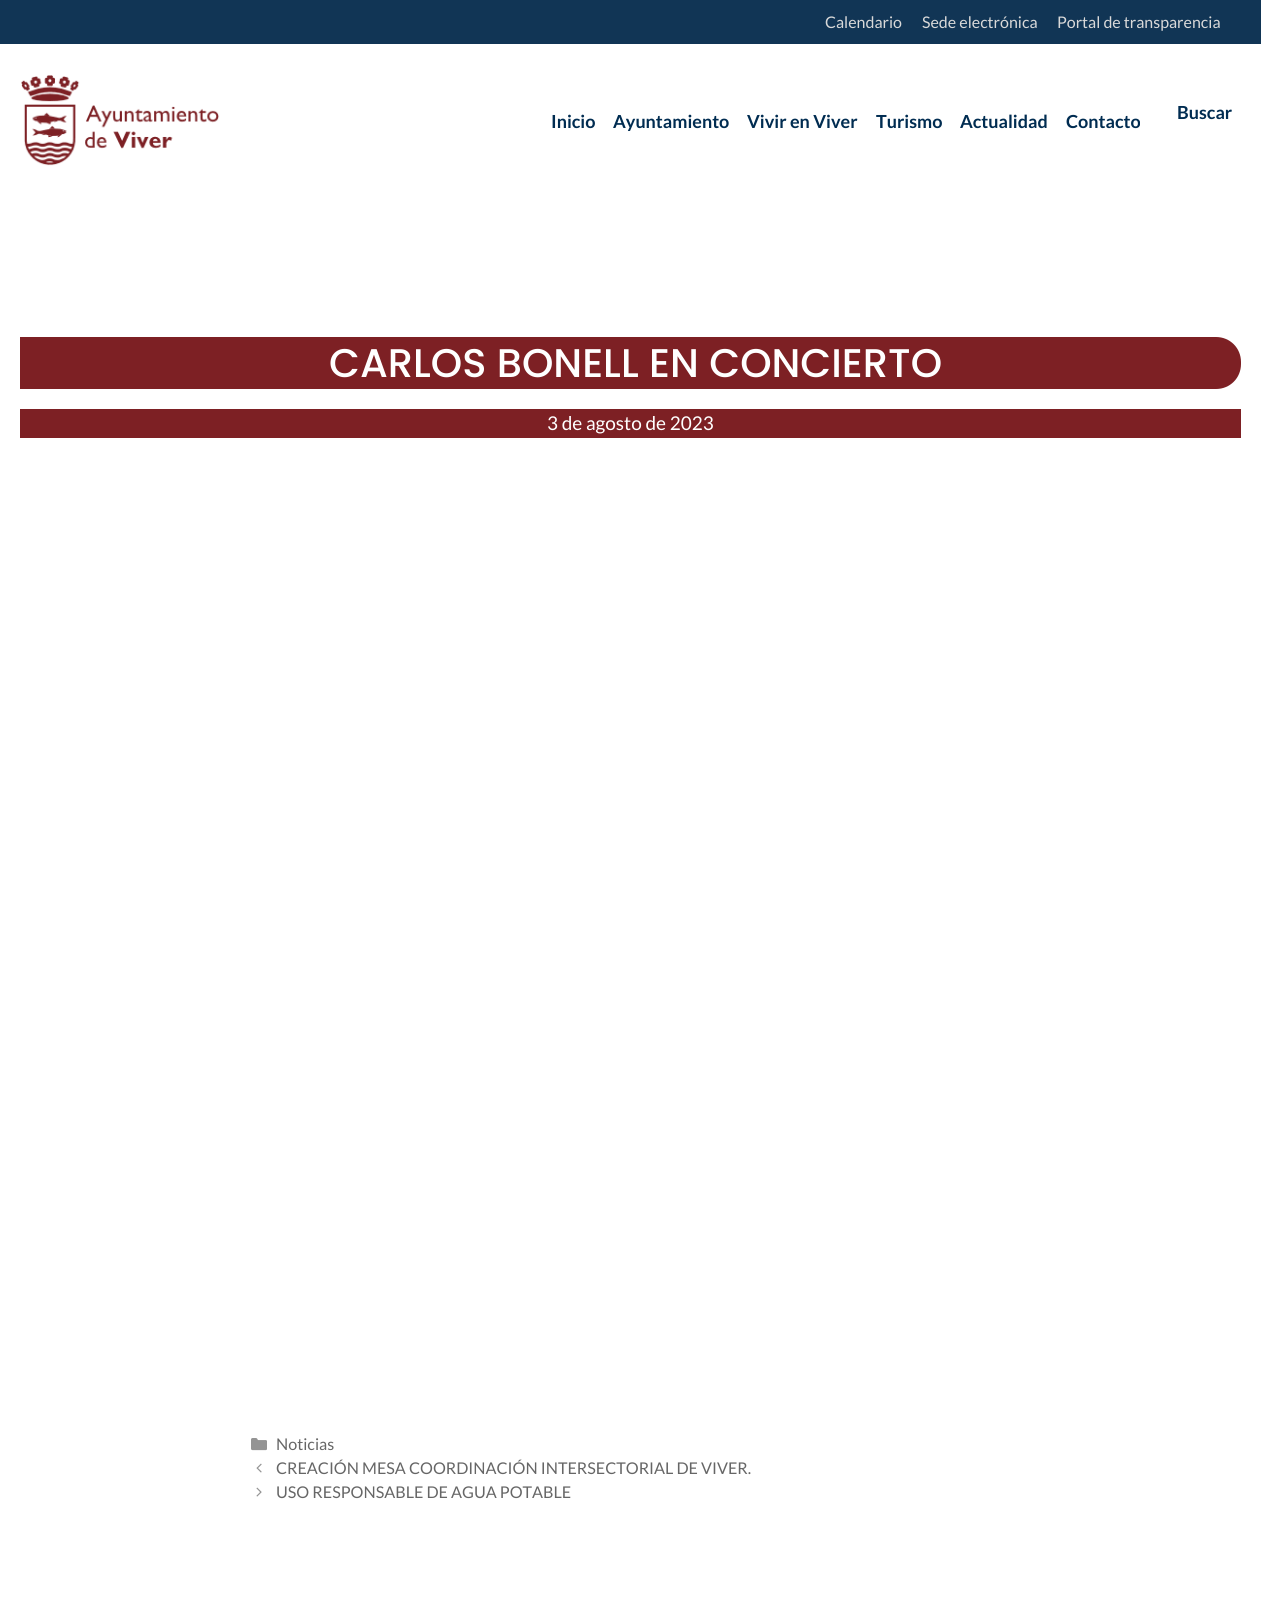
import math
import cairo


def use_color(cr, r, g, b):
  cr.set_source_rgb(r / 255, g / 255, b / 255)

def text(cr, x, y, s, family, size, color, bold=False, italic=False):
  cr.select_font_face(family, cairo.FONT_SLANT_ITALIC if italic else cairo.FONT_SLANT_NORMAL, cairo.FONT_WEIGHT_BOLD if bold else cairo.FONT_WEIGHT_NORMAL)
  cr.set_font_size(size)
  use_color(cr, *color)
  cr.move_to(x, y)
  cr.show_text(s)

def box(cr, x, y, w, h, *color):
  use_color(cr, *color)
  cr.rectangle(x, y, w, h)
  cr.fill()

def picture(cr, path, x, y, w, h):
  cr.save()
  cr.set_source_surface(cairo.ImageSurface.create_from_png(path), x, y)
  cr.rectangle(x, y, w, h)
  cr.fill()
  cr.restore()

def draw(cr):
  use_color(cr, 255, 255, 255)
  cr.paint()
  box(cr, 0, 0, 1261, 44, 17, 53, 85)
  picture(cr, "img_01.png", 21, 75, 199, 91)
  use_color(cr, 125, 32, 36)
  cr.new_path()
  cr.move_to(20, 337)
  cr.line_to(1216, 337)
  cr.curve_to(1230, 337, 1241, 348, 1241, 362)
  cr.line_to(1241, 364)
  cr.curve_to(1241, 378, 1230, 389, 1216, 389)
  cr.line_to(20, 389)
  cr.close_path()
  cr.fill()
  box(cr, 20, 409, 1221, 29, 125, 32, 36)
  picture(cr, "img_02.png", 251, 1438, 16, 13)
  picture(cr, "img_03.png", 256, 1463, 6, 10)
  picture(cr, "img_04.png", 256, 1487, 6, 10)
  text(cr, 825, 28, "Calendario", "Lato", 16, (217, 217, 217))
  text(cr, 922, 28, "Sede electrónica", "Lato", 16, (217, 217, 217))
  text(cr, 1057, 28, "Portal de transparencia", "Lato", 16, (217, 217, 217))
  text(cr, 551, 128, "Inicio", "Lato", 18, (0, 44, 81), bold=True)
  text(cr, 613, 128, "Ayuntamiento", "Lato", 18, (0, 44, 81), bold=True)
  text(cr, 747, 128, "Vivir en Viver", "Lato", 18, (0, 44, 81), bold=True)
  text(cr, 876, 128, "Turismo", "Lato", 18, (0, 44, 81), bold=True)
  text(cr, 960, 128, "Actualidad", "Lato", 18, (0, 44, 81), bold=True)
  text(cr, 1066, 128, "Contacto", "Lato", 18, (0, 44, 81), bold=True)
  text(cr, 1177, 119, "Buscar", "Lato", 18, (0, 44, 81), bold=True)
  text(cr, 329, 377, "CARLOS BONELL EN CONCIERTO", "Poppins Medium", 40, (255, 255, 255))
  text(cr, 547, 430, "3 de agosto de 2023", "Lato", 19, (255, 255, 255))
  text(cr, 276, 1450, "Noticias", "Lato", 16.15, (102, 102, 102))
  text(cr, 276, 1474, "CREACIÓN MESA COORDINACIÓN INTERSECTORIAL DE VIVER.", "Lato", 16.15, (102, 102, 102))
  text(cr, 276, 1498, "USO RESPONSABLE DE AGUA POTABLE", "Lato", 16.15, (102, 102, 102))


surface = cairo.ImageSurface(cairo.FORMAT_RGB24, 1261, 1613)
cr = cairo.Context(surface)
options = cairo.FontOptions()
options.set_hint_metrics(cairo.HINT_METRICS_OFF)
options.set_hint_style(cairo.HINT_STYLE_NONE)
cr.set_font_options(options)
cr.set_miter_limit(4)
draw(cr)
surface.write_to_png("out.png")
